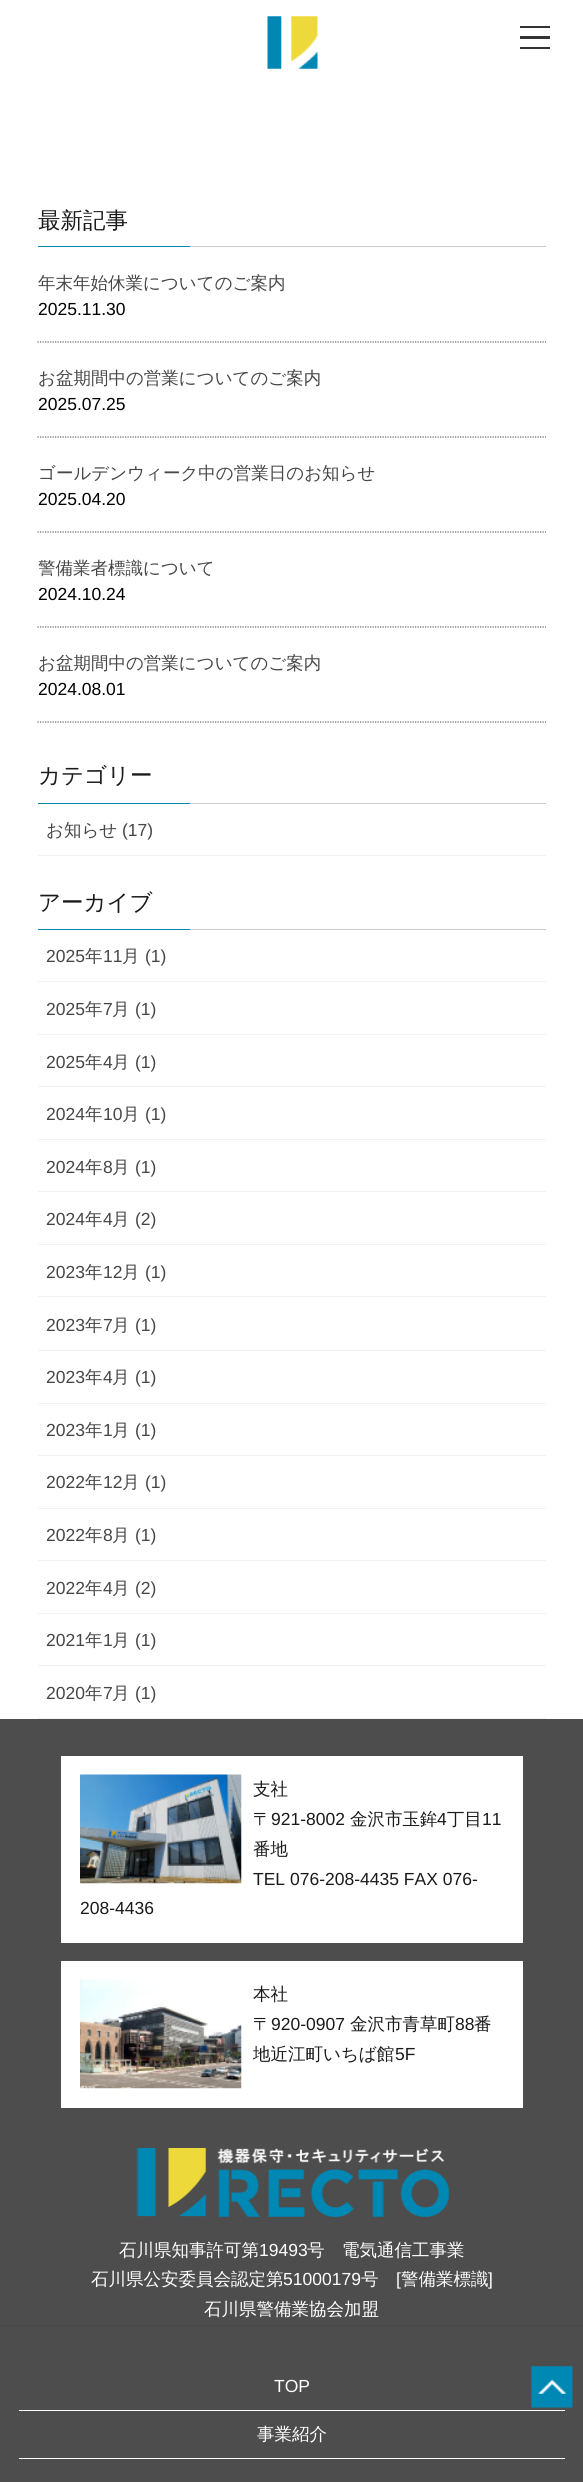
import math
import cairo


def use_color(cr, r, g, b):
  cr.set_source_rgb(r / 255, g / 255, b / 255)

def text(cr, x, y, s, family, size, color, bold=False, italic=False):
  cr.select_font_face(family, cairo.FONT_SLANT_ITALIC if italic else cairo.FONT_SLANT_NORMAL, cairo.FONT_WEIGHT_BOLD if bold else cairo.FONT_WEIGHT_NORMAL)
  cr.set_font_size(size)
  use_color(cr, *color)
  cr.move_to(x, y)
  cr.show_text(s)

def box(cr, x, y, w, h, *color):
  use_color(cr, *color)
  cr.rectangle(x, y, w, h)
  cr.fill()

def picture(cr, path, x, y, w, h):
  cr.save()
  cr.set_source_surface(cairo.ImageSurface.create_from_png(path), x, y)
  cr.rectangle(x, y, w, h)
  cr.fill()
  cr.restore()

def draw(cr):
  use_color(cr, 255, 255, 255)
  cr.paint()
  picture(cr, "img_01.png", 267, 16, 51, 53)
  box(cr, 520, 26, 30, 2, 51, 51, 51)
  box(cr, 520, 36, 30, 3, 51, 51, 51)
  box(cr, 520, 47, 30, 2, 51, 51, 51)
  box(cr, 190, 246, 356, 1, 204, 204, 204)
  box(cr, 38, 246, 152, 1, 0, 135, 179)
  cr.new_path()
  cr.move_to(37.5, 342)
  cr.line_to(546, 342)
  use_color(cr, 102, 102, 102)
  cr.set_line_width(1.2)
  cr.set_dash([1.25, 1.25])
  cr.stroke()
  cr.new_path()
  cr.move_to(37.5, 437)
  cr.line_to(546, 437)
  cr.stroke()
  cr.new_path()
  cr.move_to(37.5, 532)
  cr.line_to(546, 532)
  cr.stroke()
  cr.new_path()
  cr.move_to(37.5, 627)
  cr.line_to(546, 627)
  cr.stroke()
  cr.new_path()
  cr.move_to(37.5, 722)
  cr.line_to(546, 722)
  cr.stroke()
  box(cr, 190, 803, 356, 1, 204, 204, 204)
  box(cr, 38, 803, 152, 1, 0, 135, 179)
  box(cr, 38, 855, 508, 1, 242, 242, 242)
  box(cr, 190, 929, 356, 1, 204, 204, 204)
  box(cr, 38, 929, 152, 1, 0, 135, 179)
  box(cr, 38, 981, 508, 1, 242, 242, 242)
  box(cr, 38, 1034, 508, 1, 242, 242, 242)
  box(cr, 38, 1086, 508, 1, 242, 242, 242)
  box(cr, 38, 1139, 508, 1, 242, 242, 242)
  box(cr, 38, 1191, 508, 1, 242, 242, 242)
  box(cr, 38, 1244, 508, 1, 242, 242, 242)
  box(cr, 38, 1296, 508, 1, 242, 242, 242)
  box(cr, 38, 1350, 508, 1, 242, 242, 242)
  box(cr, 38, 1403, 508, 1, 242, 242, 242)
  box(cr, 38, 1455, 508, 1, 242, 242, 242)
  box(cr, 38, 1508, 508, 1, 242, 242, 242)
  box(cr, 38, 1560, 508, 1, 242, 242, 242)
  box(cr, 38, 1613, 508, 1, 242, 242, 242)
  box(cr, 38, 1665, 508, 1, 242, 242, 242)
  box(cr, 38, 1718, 508, 1, 242, 242, 242)
  box(cr, 0, 1719, 583, 763, 77, 77, 77)
  box(cr, 61, 1756, 462, 187, 255, 255, 255)
  picture(cr, "img_02.png", 80, 1774, 162, 110)
  box(cr, 61, 1961, 462, 147, 255, 255, 255)
  picture(cr, "img_03.png", 80, 1979, 162, 110)
  picture(cr, "img_04.png", 136, 2148, 313, 69)
  box(cr, 0, 2325, 583, 1, 73, 73, 73)
  box(cr, 19, 2410, 546, 1, 255, 255, 255)
  box(cr, 19, 2458, 546, 1, 255, 255, 255)
  picture(cr, "img_05.png", 531, 2366, 42, 42)
  text(cr, 38, 228, "最新記事", "WenQuanYi Zen Hei Medium", 22.5, (26, 26, 26))
  text(cr, 38, 289, "年末年始休業についてのご案内", "WenQuanYi Zen Hei Medium", 17.5, (70, 70, 70))
  text(cr, 38, 315, "2025.11.30", "Liberation Sans", 17.5, (0, 0, 0))
  text(cr, 38, 384, "お盆期間中の営業についてのご案内", "WenQuanYi Zen Hei Medium", 17.5, (70, 70, 70))
  text(cr, 38, 410, "2025.07.25", "Liberation Sans", 17.5, (0, 0, 0))
  text(cr, 38, 479, "ゴールデンウィーク中の営業日のお知らせ", "WenQuanYi Zen Hei Medium", 17.5, (70, 70, 70))
  text(cr, 38, 505, "2025.04.20", "Liberation Sans", 17.5, (0, 0, 0))
  text(cr, 38, 574, "警備業者標識について", "WenQuanYi Zen Hei Medium", 17.5, (70, 70, 70))
  text(cr, 38, 600, "2024.10.24", "Liberation Sans", 17.5, (0, 0, 0))
  text(cr, 38, 669, "お盆期間中の営業についてのご案内", "WenQuanYi Zen Hei Medium", 17.5, (70, 70, 70))
  text(cr, 38, 695, "2024.08.01", "Liberation Sans", 17.5, (0, 0, 0))
  text(cr, 38, 783, "カテゴリー", "WenQuanYi Zen Hei Medium", 22.5, (26, 26, 26))
  text(cr, 46, 836, "お知らせ", "WenQuanYi Zen Hei Medium", 17.5, (70, 70, 70))
  text(cr, 122, 836, "(17)", "Liberation Sans", 17.5, (70, 70, 70))
  text(cr, 38, 910, "アーカイブ", "WenQuanYi Zen Hei Medium", 22.5, (26, 26, 26))
  text(cr, 46, 962, "2025", "Liberation Sans", 17.5, (70, 70, 70))
  text(cr, 85, 962, "年", "WenQuanYi Zen Hei Medium", 17.5, (70, 70, 70))
  text(cr, 103, 962, "11", "Liberation Sans", 17.5, (70, 70, 70))
  text(cr, 122, 962, "月", "WenQuanYi Zen Hei Medium", 17.5, (70, 70, 70))
  text(cr, 145, 962, "(1)", "Liberation Sans", 17.5, (70, 70, 70))
  text(cr, 46, 1015, "2025", "Liberation Sans", 17.5, (70, 70, 70))
  text(cr, 85, 1015, "年", "WenQuanYi Zen Hei Medium", 17.5, (70, 70, 70))
  text(cr, 103, 1015, "7", "Liberation Sans", 17.5, (70, 70, 70))
  text(cr, 112, 1015, "月", "WenQuanYi Zen Hei Medium", 17.5, (70, 70, 70))
  text(cr, 135, 1015, "(1)", "Liberation Sans", 17.5, (70, 70, 70))
  text(cr, 46, 1068, "2025", "Liberation Sans", 17.5, (70, 70, 70))
  text(cr, 85, 1068, "年", "WenQuanYi Zen Hei Medium", 17.5, (70, 70, 70))
  text(cr, 103, 1068, "4", "Liberation Sans", 17.5, (70, 70, 70))
  text(cr, 112, 1068, "月", "WenQuanYi Zen Hei Medium", 17.5, (70, 70, 70))
  text(cr, 135, 1068, "(1)", "Liberation Sans", 17.5, (70, 70, 70))
  text(cr, 46, 1120, "2024", "Liberation Sans", 17.5, (70, 70, 70))
  text(cr, 85, 1120, "年", "WenQuanYi Zen Hei Medium", 17.5, (70, 70, 70))
  text(cr, 103, 1120, "10", "Liberation Sans", 17.5, (70, 70, 70))
  text(cr, 122, 1120, "月", "WenQuanYi Zen Hei Medium", 17.5, (70, 70, 70))
  text(cr, 145, 1120, "(1)", "Liberation Sans", 17.5, (70, 70, 70))
  text(cr, 46, 1173, "2024", "Liberation Sans", 17.5, (70, 70, 70))
  text(cr, 85, 1173, "年", "WenQuanYi Zen Hei Medium", 17.5, (70, 70, 70))
  text(cr, 103, 1173, "8", "Liberation Sans", 17.5, (70, 70, 70))
  text(cr, 112, 1173, "月", "WenQuanYi Zen Hei Medium", 17.5, (70, 70, 70))
  text(cr, 135, 1173, "(1)", "Liberation Sans", 17.5, (70, 70, 70))
  text(cr, 46, 1225, "2024", "Liberation Sans", 17.5, (70, 70, 70))
  text(cr, 85, 1225, "年", "WenQuanYi Zen Hei Medium", 17.5, (70, 70, 70))
  text(cr, 103, 1225, "4", "Liberation Sans", 17.5, (70, 70, 70))
  text(cr, 112, 1225, "月", "WenQuanYi Zen Hei Medium", 17.5, (70, 70, 70))
  text(cr, 135, 1225, "(2)", "Liberation Sans", 17.5, (70, 70, 70))
  text(cr, 46, 1278, "2023", "Liberation Sans", 17.5, (70, 70, 70))
  text(cr, 85, 1278, "年", "WenQuanYi Zen Hei Medium", 17.5, (70, 70, 70))
  text(cr, 103, 1278, "12", "Liberation Sans", 17.5, (70, 70, 70))
  text(cr, 122, 1278, "月", "WenQuanYi Zen Hei Medium", 17.5, (70, 70, 70))
  text(cr, 145, 1278, "(1)", "Liberation Sans", 17.5, (70, 70, 70))
  text(cr, 46, 1331, "2023", "Liberation Sans", 17.5, (70, 70, 70))
  text(cr, 85, 1331, "年", "WenQuanYi Zen Hei Medium", 17.5, (70, 70, 70))
  text(cr, 103, 1331, "7", "Liberation Sans", 17.5, (70, 70, 70))
  text(cr, 112, 1331, "月", "WenQuanYi Zen Hei Medium", 17.5, (70, 70, 70))
  text(cr, 135, 1331, "(1)", "Liberation Sans", 17.5, (70, 70, 70))
  text(cr, 46, 1383, "2023", "Liberation Sans", 17.5, (70, 70, 70))
  text(cr, 85, 1383, "年", "WenQuanYi Zen Hei Medium", 17.5, (70, 70, 70))
  text(cr, 103, 1383, "4", "Liberation Sans", 17.5, (70, 70, 70))
  text(cr, 112, 1383, "月", "WenQuanYi Zen Hei Medium", 17.5, (70, 70, 70))
  text(cr, 135, 1383, "(1)", "Liberation Sans", 17.5, (70, 70, 70))
  text(cr, 46, 1436, "2023", "Liberation Sans", 17.5, (70, 70, 70))
  text(cr, 85, 1436, "年", "WenQuanYi Zen Hei Medium", 17.5, (70, 70, 70))
  text(cr, 103, 1436, "1", "Liberation Sans", 17.5, (70, 70, 70))
  text(cr, 112, 1436, "月", "WenQuanYi Zen Hei Medium", 17.5, (70, 70, 70))
  text(cr, 135, 1436, "(1)", "Liberation Sans", 17.5, (70, 70, 70))
  text(cr, 46, 1488, "2022", "Liberation Sans", 17.5, (70, 70, 70))
  text(cr, 85, 1488, "年", "WenQuanYi Zen Hei Medium", 17.5, (70, 70, 70))
  text(cr, 103, 1488, "12", "Liberation Sans", 17.5, (70, 70, 70))
  text(cr, 122, 1488, "月", "WenQuanYi Zen Hei Medium", 17.5, (70, 70, 70))
  text(cr, 145, 1488, "(1)", "Liberation Sans", 17.5, (70, 70, 70))
  text(cr, 46, 1541, "2022", "Liberation Sans", 17.5, (70, 70, 70))
  text(cr, 85, 1541, "年", "WenQuanYi Zen Hei Medium", 17.5, (70, 70, 70))
  text(cr, 103, 1541, "8", "Liberation Sans", 17.5, (70, 70, 70))
  text(cr, 112, 1541, "月", "WenQuanYi Zen Hei Medium", 17.5, (70, 70, 70))
  text(cr, 135, 1541, "(1)", "Liberation Sans", 17.5, (70, 70, 70))
  text(cr, 46, 1594, "2022", "Liberation Sans", 17.5, (70, 70, 70))
  text(cr, 85, 1594, "年", "WenQuanYi Zen Hei Medium", 17.5, (70, 70, 70))
  text(cr, 103, 1594, "4", "Liberation Sans", 17.5, (70, 70, 70))
  text(cr, 112, 1594, "月", "WenQuanYi Zen Hei Medium", 17.5, (70, 70, 70))
  text(cr, 135, 1594, "(2)", "Liberation Sans", 17.5, (70, 70, 70))
  text(cr, 46, 1646, "2021", "Liberation Sans", 17.5, (70, 70, 70))
  text(cr, 85, 1646, "年", "WenQuanYi Zen Hei Medium", 17.5, (70, 70, 70))
  text(cr, 103, 1646, "1", "Liberation Sans", 17.5, (70, 70, 70))
  text(cr, 112, 1646, "月", "WenQuanYi Zen Hei Medium", 17.5, (70, 70, 70))
  text(cr, 135, 1646, "(1)", "Liberation Sans", 17.5, (70, 70, 70))
  text(cr, 46, 1699, "2020", "Liberation Sans", 17.5, (70, 70, 70))
  text(cr, 85, 1699, "年", "WenQuanYi Zen Hei Medium", 17.5, (70, 70, 70))
  text(cr, 103, 1699, "7", "Liberation Sans", 17.5, (70, 70, 70))
  text(cr, 112, 1699, "月", "WenQuanYi Zen Hei Medium", 17.5, (70, 70, 70))
  text(cr, 135, 1699, "(1)", "Liberation Sans", 17.5, (70, 70, 70))
  text(cr, 253, 1795, "支社", "WenQuanYi Zen Hei Medium", 17.5, (26, 26, 26))
  text(cr, 253, 1825, "〒", "WenQuanYi Zen Hei Medium", 17.5, (26, 26, 26))
  text(cr, 271, 1825, "921-8002", "Liberation Sans", 17.5, (26, 26, 26))
  text(cr, 350, 1825, "金沢市玉鉾", "WenQuanYi Zen Hei Medium", 17.5, (26, 26, 26))
  text(cr, 437, 1825, "4", "Liberation Sans", 17.5, (26, 26, 26))
  text(cr, 447, 1825, "丁目", "WenQuanYi Zen Hei Medium", 17.5, (26, 26, 26))
  text(cr, 482, 1825, "11", "Liberation Sans", 17.5, (26, 26, 26))
  text(cr, 253, 1855, "番地", "WenQuanYi Zen Hei Medium", 17.5, (26, 26, 26))
  text(cr, 253, 1885, "TEL 076-208-4435 FAX 076-", "Liberation Sans", 17.5, (26, 26, 26))
  text(cr, 80, 1914, "208-4436", "Liberation Sans", 17.5, (26, 26, 26))
  text(cr, 253, 2000, "本社", "WenQuanYi Zen Hei Medium", 17.5, (26, 26, 26))
  text(cr, 253, 2030, "〒", "WenQuanYi Zen Hei Medium", 17.5, (26, 26, 26))
  text(cr, 271, 2030, "920-0907", "Liberation Sans", 17.5, (26, 26, 26))
  text(cr, 350, 2030, "金沢市青草町", "WenQuanYi Zen Hei Medium", 17.5, (26, 26, 26))
  text(cr, 455, 2030, "88", "Liberation Sans", 17.5, (26, 26, 26))
  text(cr, 474, 2030, "番", "WenQuanYi Zen Hei Medium", 17.5, (26, 26, 26))
  text(cr, 253, 2060, "地近江町いちば館", "WenQuanYi Zen Hei Medium", 17.5, (26, 26, 26))
  text(cr, 395, 2060, "5F", "Liberation Sans", 17.5, (26, 26, 26))
  text(cr, 119, 2256, "石川県知事許可第", "WenQuanYi Zen Hei Medium", 17.5, (255, 255, 255))
  text(cr, 259, 2256, "19493", "Liberation Sans", 17.5, (255, 255, 255))
  text(cr, 307, 2256, "号　電気通信工事業", "WenQuanYi Zen Hei Medium", 17.5, (255, 255, 255))
  text(cr, 91, 2285, "石川県公安委員会認定第", "WenQuanYi Zen Hei Medium", 17.5, (255, 255, 255))
  text(cr, 283, 2285, "51000179", "Liberation Sans", 17.5, (255, 255, 255))
  text(cr, 361, 2285, "号", "WenQuanYi Zen Hei Medium", 17.5, (255, 255, 255))
  text(cr, 396, 2285, "[", "Liberation Sans", 17.5, (255, 255, 255))
  text(cr, 401, 2285, "警備業標識", "WenQuanYi Zen Hei Medium", 17.5, (255, 255, 255))
  text(cr, 488, 2285, "]", "Liberation Sans", 17.5, (255, 255, 255))
  text(cr, 204, 2315, "石川県警備業協会加盟", "WenQuanYi Zen Hei Medium", 17.5, (255, 255, 255))
  text(cr, 274, 2392, "TOP", "Liberation Sans", 17.5, (255, 255, 255))
  text(cr, 257, 2440, "事業紹介", "WenQuanYi Zen Hei Medium", 17.5, (255, 255, 255))


surface = cairo.ImageSurface(cairo.FORMAT_RGB24, 583, 2482)
cr = cairo.Context(surface)
options = cairo.FontOptions()
options.set_hint_metrics(cairo.HINT_METRICS_OFF)
options.set_hint_style(cairo.HINT_STYLE_NONE)
cr.set_font_options(options)
cr.set_miter_limit(4)
draw(cr)
surface.write_to_png("out.png")
